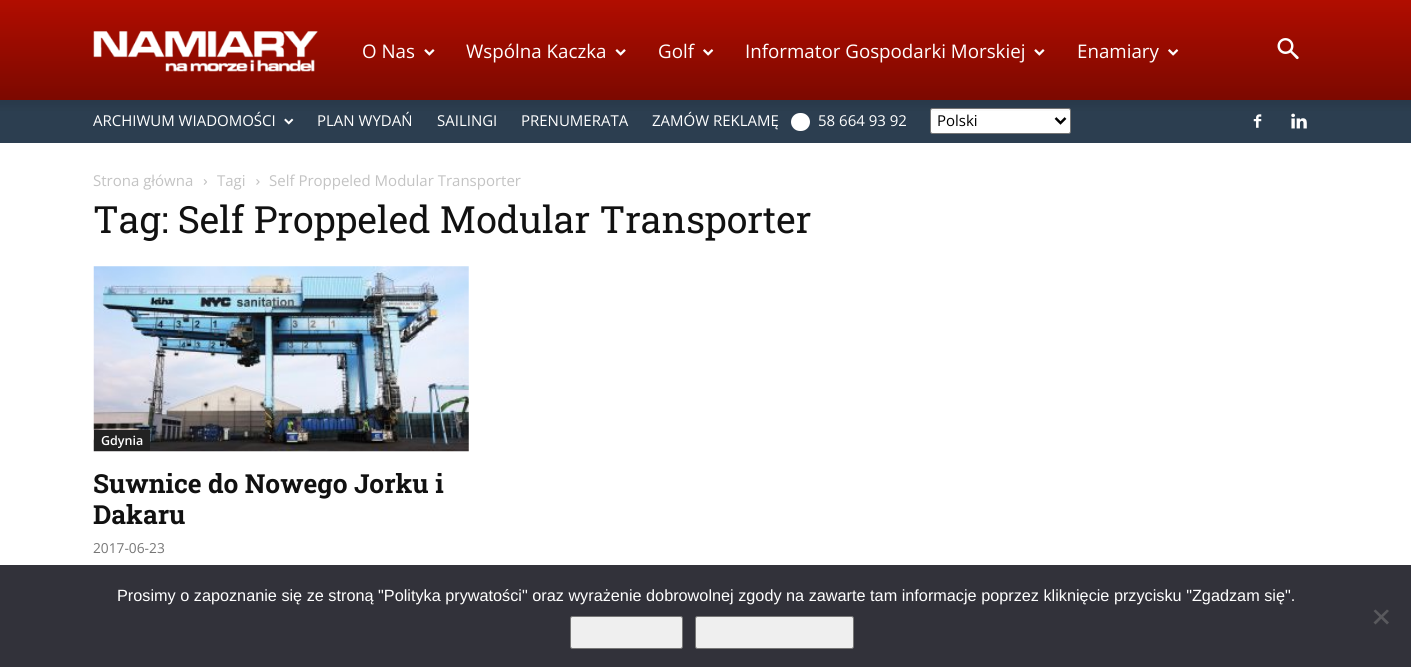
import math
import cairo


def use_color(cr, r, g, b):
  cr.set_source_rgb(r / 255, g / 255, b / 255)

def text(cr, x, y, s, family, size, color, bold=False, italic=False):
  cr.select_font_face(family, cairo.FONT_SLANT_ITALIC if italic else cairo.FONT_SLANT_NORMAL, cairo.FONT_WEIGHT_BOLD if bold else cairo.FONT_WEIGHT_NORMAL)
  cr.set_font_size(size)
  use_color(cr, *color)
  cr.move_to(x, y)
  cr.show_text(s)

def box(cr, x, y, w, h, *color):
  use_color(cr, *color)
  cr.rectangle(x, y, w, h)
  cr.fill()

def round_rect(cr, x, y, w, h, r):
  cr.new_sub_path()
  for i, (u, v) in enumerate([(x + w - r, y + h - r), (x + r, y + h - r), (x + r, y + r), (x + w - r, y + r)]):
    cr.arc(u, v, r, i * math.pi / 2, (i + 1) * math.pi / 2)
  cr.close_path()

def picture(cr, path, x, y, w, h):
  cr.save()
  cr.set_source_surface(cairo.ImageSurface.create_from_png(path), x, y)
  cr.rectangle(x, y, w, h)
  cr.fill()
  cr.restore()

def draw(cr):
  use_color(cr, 255, 255, 255)
  cr.paint()
  gradient = cairo.LinearGradient(706, 0, 706, 100)
  gradient.add_color_stop_rgba(0, 0.694, 0.051, 0, 1)
  gradient.add_color_stop_rgba(1, 0.486, 0.035, 0, 1)
  cr.set_source(gradient)
  cr.rectangle(0, 0, 1411, 100)
  cr.fill()
  picture(cr, "img_01.png", 93, 31, 225, 41)
  picture(cr, "img_02.png", 424, 49, 11, 7)
  picture(cr, "img_03.png", 615, 49, 11, 7)
  picture(cr, "img_04.png", 703, 49, 11, 7)
  picture(cr, "img_02.png", 1034, 49, 11, 7)
  picture(cr, "img_04.png", 1168, 49, 11, 7)
  picture(cr, "img_05.png", 1277, 38, 22, 22)
  box(cr, 0, 100, 1411, 43, 44, 62, 80)
  use_color(cr, 255, 255, 255)
  round_rect(cr, 930.5, 108.5, 140, 25, 2)
  cr.fill_preserve()
  use_color(cr, 118, 118, 118)
  cr.set_line_width(1)
  cr.stroke()
  picture(cr, "img_06.png", 0, 100, 1411, 11)
  picture(cr, "img_07.png", 284, 118, 10, 7)
  use_color(cr, 255, 255, 255)
  round_rect(cr, 791, 113, 19, 18, 9)
  cr.fill()
  cr.new_path()
  cr.move_to(1055.5, 118)
  cr.line_to(1060.5, 123)
  cr.line_to(1065.5, 118)
  use_color(cr, 0, 0, 0)
  cr.set_line_width(2.5)
  cr.stroke()
  picture(cr, "img_08.png", 1253, 114, 9, 14)
  picture(cr, "img_09.png", 1291, 113, 16, 16)
  picture(cr, "img_10.png", 203, 179, 4, 6)
  picture(cr, "img_11.png", 256, 179, 4, 6)
  picture(cr, "img_12.png", 93, 266, 376, 186)
  box(cr, 94, 430, 56, 21, 34, 34, 34)
  box(cr, 0, 565, 1411, 102, 50, 50, 58)
  use_color(cr, 239, 239, 239)
  round_rect(cr, 570.5, 616.5, 112, 32, 2)
  cr.fill_preserve()
  use_color(cr, 118, 118, 118)
  cr.set_line_width(1)
  cr.stroke()
  use_color(cr, 239, 239, 239)
  round_rect(cr, 695.5, 616.5, 158, 32, 2)
  cr.fill_preserve()
  use_color(cr, 118, 118, 118)
  cr.stroke()
  use_color(cr, 89, 89, 93)
  cr.new_path()
  cr.move_to(1387, 609.5)
  cr.line_to(1389, 611)
  cr.line_to(1375.5, 624.5)
  cr.line_to(1373.5, 622.5)
  cr.close_path()
  cr.fill()
  cr.new_path()
  cr.move_to(1373.5, 611)
  cr.line_to(1375.5, 609.5)
  cr.line_to(1389, 622.5)
  cr.line_to(1387, 624.5)
  cr.close_path()
  cr.fill()
  text(cr, 362, 58, "O Nas", "Open Sans", 18.75, (255, 255, 255))
  text(cr, 466, 58, "Wspólna Kaczka", "Open Sans", 18.75, (255, 255, 255))
  text(cr, 658, 58, "Golf", "Open Sans", 18.75, (255, 255, 255))
  text(cr, 745, 58, "Informator Gospodarki Morskiej", "Open Sans", 18.75, (255, 255, 255))
  text(cr, 1077, 58, "Enamiary", "Open Sans", 18.75, (255, 255, 255))
  text(cr, 93, 126, "ARCHIWUM WIADOMOŚCI", "Open Sans", 15, (255, 255, 255))
  text(cr, 317, 126, "PLAN WYDAŃ", "Open Sans", 15, (255, 255, 255))
  text(cr, 437, 126, "SAILINGI", "Open Sans", 15, (255, 255, 255))
  text(cr, 521, 126, "PRENUMERATA", "Open Sans", 15, (255, 255, 255))
  text(cr, 652, 126, "ZAMÓW REKLAMĘ", "Open Sans", 15, (255, 255, 255))
  text(cr, 818, 126, "58 664 93 92", "Open Sans", 15, (255, 255, 255))
  text(cr, 937, 126, "Polski", "Open Sans", 15, (0, 0, 0))
  text(cr, 93, 186, "Strona główna", "Open Sans", 15, (195, 195, 195))
  text(cr, 217, 186, "Tagi", "Open Sans", 15, (195, 195, 195))
  text(cr, 269, 186, "Self Proppeled Modular Transporter", "Open Sans", 15, (195, 195, 195))
  text(cr, 93, 233, "Tag: Self Proppeled Modular Transporter", "Roboto Slab", 37.5, (17, 17, 17))
  text(cr, 101, 445, "Gdynia", "Open Sans SemiBold", 12.5, (255, 255, 255))
  text(cr, 93, 493, "Suwnice do Nowego Jorku i", "Roboto Slab", 26.25, (17, 17, 17), bold=True)
  text(cr, 93, 524, "Dakaru", "Roboto Slab", 26.25, (17, 17, 17), bold=True)
  text(cr, 93, 553, "2017-06-23", "Open Sans", 13.75, (118, 118, 118))
  text(cr, 117, 601, "Prosimy o zapoznanie się ze stroną \"Polityka prywatości\" oraz wyrażenie dobrowolnej zgody na zawarte tam informacje poprzez kliknięcie przycisku \"Zgadzam się\".", "Liberation Sans", 16.25, (255, 255, 255))


surface = cairo.ImageSurface(cairo.FORMAT_RGB24, 1411, 667)
cr = cairo.Context(surface)
options = cairo.FontOptions()
options.set_hint_metrics(cairo.HINT_METRICS_OFF)
options.set_hint_style(cairo.HINT_STYLE_NONE)
cr.set_font_options(options)
cr.set_miter_limit(4)
draw(cr)
surface.write_to_png("out.png")
